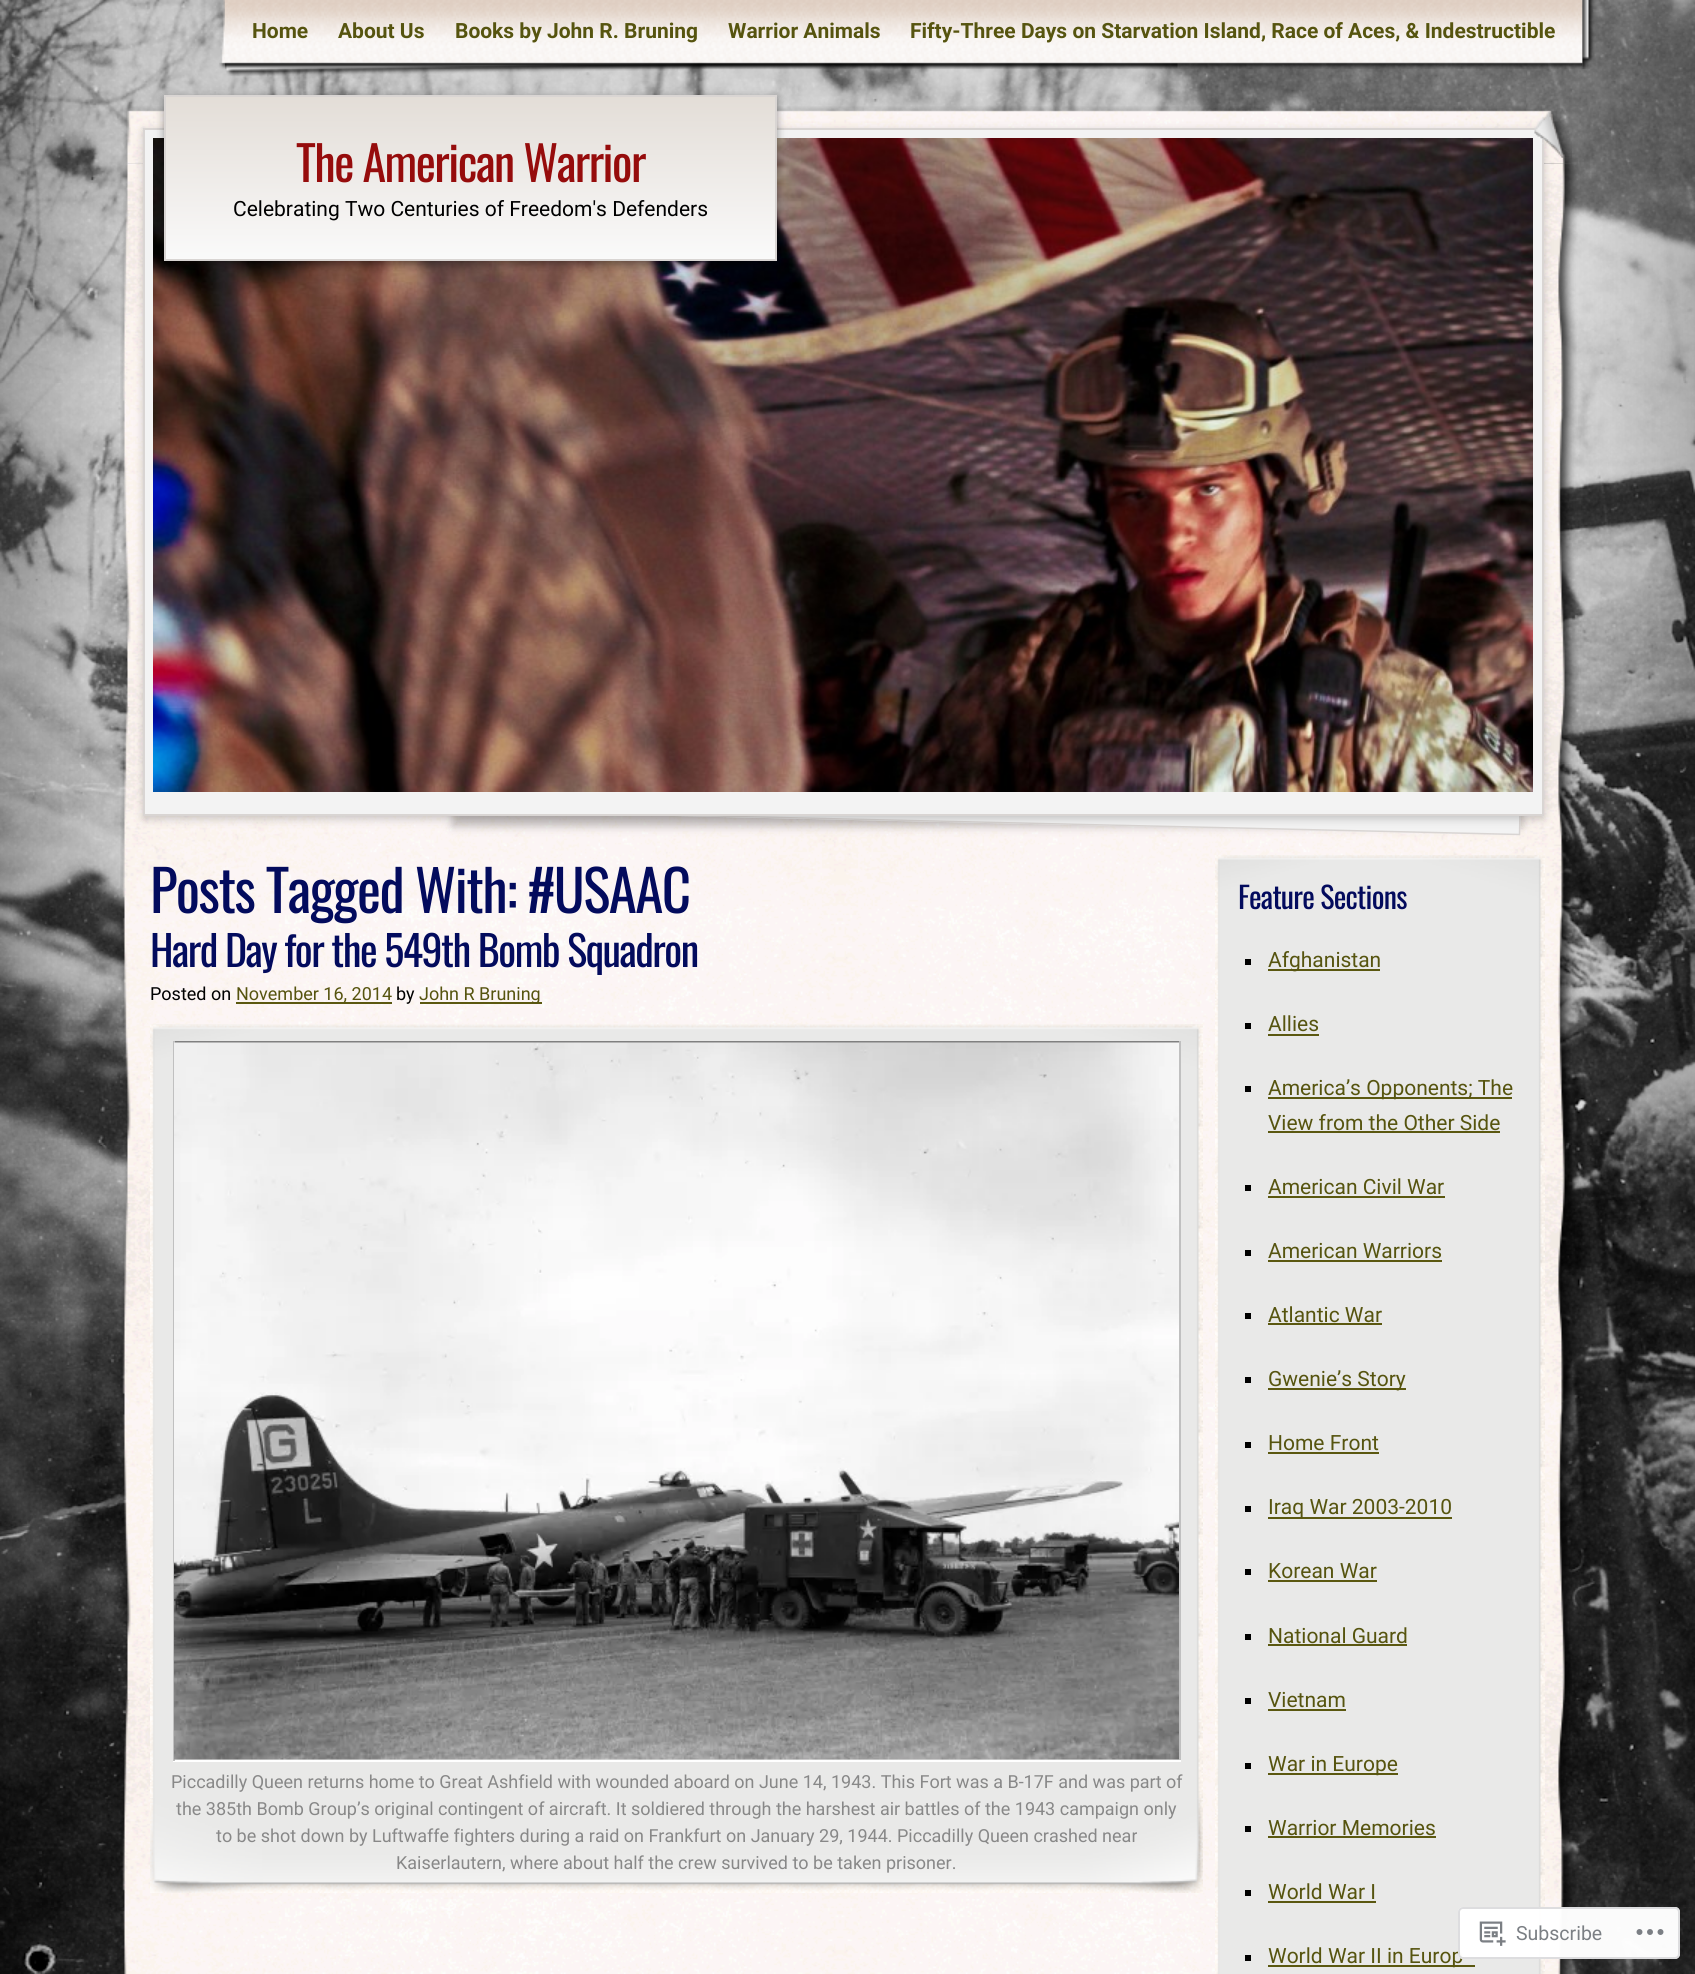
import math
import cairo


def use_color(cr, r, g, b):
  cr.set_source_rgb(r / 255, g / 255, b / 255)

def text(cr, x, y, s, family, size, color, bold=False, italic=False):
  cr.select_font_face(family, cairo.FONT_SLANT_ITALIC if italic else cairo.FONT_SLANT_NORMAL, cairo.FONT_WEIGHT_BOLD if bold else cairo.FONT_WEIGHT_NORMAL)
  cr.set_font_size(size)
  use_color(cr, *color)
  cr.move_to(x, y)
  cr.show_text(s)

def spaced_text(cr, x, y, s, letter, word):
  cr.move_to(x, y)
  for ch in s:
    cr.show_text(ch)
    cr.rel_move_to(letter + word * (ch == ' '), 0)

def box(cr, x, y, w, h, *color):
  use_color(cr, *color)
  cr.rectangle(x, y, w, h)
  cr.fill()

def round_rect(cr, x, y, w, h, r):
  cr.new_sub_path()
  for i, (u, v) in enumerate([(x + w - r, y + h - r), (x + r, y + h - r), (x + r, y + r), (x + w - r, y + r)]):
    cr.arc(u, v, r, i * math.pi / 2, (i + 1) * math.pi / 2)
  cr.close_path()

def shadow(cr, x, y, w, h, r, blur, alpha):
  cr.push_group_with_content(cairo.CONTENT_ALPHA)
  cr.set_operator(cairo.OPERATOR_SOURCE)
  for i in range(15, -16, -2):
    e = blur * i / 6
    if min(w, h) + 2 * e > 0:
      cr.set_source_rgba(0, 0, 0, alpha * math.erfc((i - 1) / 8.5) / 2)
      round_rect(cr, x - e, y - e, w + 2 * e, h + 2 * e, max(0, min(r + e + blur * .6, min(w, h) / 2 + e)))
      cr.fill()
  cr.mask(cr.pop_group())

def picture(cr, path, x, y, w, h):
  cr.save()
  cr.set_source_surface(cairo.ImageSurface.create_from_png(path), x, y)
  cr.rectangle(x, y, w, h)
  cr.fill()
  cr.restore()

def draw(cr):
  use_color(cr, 255, 255, 255)
  cr.paint()
  picture(cr, "img_01.png", 0, 0, 1695, 1974)
  picture(cr, "img_02.png", 0, 0, 1695, 1974)
  picture(cr, "img_03.png", 219, 0, 959, 76)
  picture(cr, "img_04.png", 225, 0, 1358, 69)
  picture(cr, "img_05.png", 1582, 0, 13, 69)
  picture(cr, "img_09.png", 120, 163, 1459, 1811)
  picture(cr, "img_06.png", 124, 106, 1454, 58)
  use_color(cr, 0, 0, 0)
  shadow(cr, 452, 653, 1071, 174, 0, 4.5, 0.2)
  use_color(cr, 243, 243, 243)
  cr.new_path()
  cr.move_to(454, 637)
  cr.line_to(1524, 661)
  cr.line_to(1520, 835)
  cr.line_to(450, 811)
  cr.close_path()
  cr.fill()
  cr.new_path()
  cr.move_to(454.5, 638)
  cr.line_to(1523.5, 662)
  cr.line_to(1519.5, 834.5)
  cr.line_to(450.5, 810)
  cr.close_path()
  use_color(cr, 217, 213, 211)
  cr.set_line_width(1.5)
  cr.stroke()
  use_color(cr, 0, 0, 0)
  shadow(cr, 143, 131, 1401, 688, 0, 4.5, 0.2)
  use_color(cr, 243, 243, 243)
  cr.rectangle(144, 129, 1399, 686)
  cr.fill_preserve()
  use_color(cr, 217, 213, 211)
  cr.set_line_width(2)
  cr.stroke()
  picture(cr, "img_07.png", 1534, 110, 38, 48)
  picture(cr, "img_08.png", 153, 138, 1380, 654)
  use_color(cr, 0, 0, 0)
  shadow(cr, 164, 98, 613, 166, 0, 4.5, 0.4)
  gradient = cairo.LinearGradient(470, 96, 470, 260)
  gradient.add_color_stop_rgba(0, 0.89, 0.867, 0.843, 1)
  gradient.add_color_stop_rgba(1, 0.98, 0.98, 0.98, 1)
  cr.set_source(gradient)
  cr.rectangle(166, 97, 609, 162)
  cr.fill()
  cr.rectangle(165, 96, 611, 164)
  use_color(cr, 217, 213, 211)
  cr.stroke()
  box(cr, 236, 1002, 156, 2, 91, 88, 16)
  box(cr, 420, 1002, 122, 2, 91, 88, 16)
  box(cr, 168, 1069, 1017, 730, 233, 233, 232)
  picture(cr, "img_10.png", 150, 1024, 1053, 869)
  box(cr, 173, 1041, 1008, 2, 128, 128, 128)
  box(cr, 1179, 1041, 2, 720, 192, 192, 192)
  box(cr, 173, 1760, 1008, 2, 255, 255, 255)
  box(cr, 173, 1041, 2, 720, 192, 192, 192)
  picture(cr, "img_11.png", 174, 1042, 1005, 718)
  box(cr, 1233, 900, 294, 1074, 233, 233, 232)
  picture(cr, "img_12.png", 1215, 855, 330, 1119)
  box(cr, 1245, 959, 6, 6, 0, 0, 0)
  box(cr, 1268, 969, 112, 2, 91, 88, 16)
  box(cr, 1245, 1023, 6, 6, 0, 0, 0)
  box(cr, 1268, 1034, 51, 2, 91, 88, 16)
  box(cr, 1245, 1086, 6, 6, 0, 0, 0)
  box(cr, 1268, 1097, 244, 2, 91, 88, 16)
  box(cr, 1268, 1131, 232, 2, 91, 88, 16)
  box(cr, 1245, 1185, 6, 6, 0, 0, 0)
  box(cr, 1268, 1196, 177, 2, 91, 88, 16)
  box(cr, 1245, 1250, 6, 6, 0, 0, 0)
  box(cr, 1268, 1260, 174, 2, 91, 88, 16)
  box(cr, 1245, 1313, 6, 6, 0, 0, 0)
  box(cr, 1268, 1323, 114, 2, 91, 88, 16)
  box(cr, 1245, 1377, 6, 6, 0, 0, 0)
  box(cr, 1268, 1388, 138, 2, 91, 88, 16)
  box(cr, 1245, 1442, 6, 6, 0, 0, 0)
  box(cr, 1268, 1452, 111, 2, 91, 88, 16)
  box(cr, 1245, 1506, 6, 6, 0, 0, 0)
  box(cr, 1268, 1517, 184, 2, 91, 88, 16)
  box(cr, 1245, 1569, 6, 6, 0, 0, 0)
  box(cr, 1268, 1580, 109, 2, 91, 88, 16)
  box(cr, 1245, 1634, 6, 6, 0, 0, 0)
  box(cr, 1268, 1644, 139, 2, 91, 88, 16)
  box(cr, 1245, 1698, 6, 6, 0, 0, 0)
  box(cr, 1268, 1709, 78, 2, 91, 88, 16)
  box(cr, 1245, 1763, 6, 6, 0, 0, 0)
  box(cr, 1268, 1773, 130, 2, 91, 88, 16)
  box(cr, 1245, 1826, 6, 6, 0, 0, 0)
  box(cr, 1268, 1836, 168, 2, 91, 88, 16)
  box(cr, 1245, 1890, 6, 6, 0, 0, 0)
  box(cr, 1268, 1901, 108, 2, 91, 88, 16)
  box(cr, 1245, 1955, 6, 6, 0, 0, 0)
  box(cr, 1268, 1965, 207, 2, 91, 88, 16)
  text(cr, 252, 38, "Home", "Roboto", 21, (86, 84, 15), bold=True)
  text(cr, 338, 38, "About Us", "Roboto", 21, (86, 84, 15), bold=True)
  text(cr, 455, 38, "Books by John R. Bruning", "Roboto", 21, (86, 84, 15), bold=True)
  text(cr, 728, 38, "Warrior Animals", "Roboto", 21, (86, 84, 15), bold=True)
  text(cr, 910, 38, "Fifty-Three Days on Starvation Island, Race of Aces, & Indestructible", "Roboto", 21, (86, 84, 15), bold=True)
  cr.select_font_face("Oswald")
  cr.set_font_size(48)
  use_color(cr, 150, 12, 12)
  spaced_text(cr, 296, 182, "The American Warrior", -1.5, 0)
  text(cr, 233, 216, "Celebrating Two Centuries of Freedom's Defenders", "Roboto", 21, (0, 0, 0))
  cr.select_font_face("Oswald")
  cr.set_font_size(57)
  use_color(cr, 3, 11, 93)
  spaced_text(cr, 150, 913, "Posts Tagged With: #USAAC", -1.5, 0)
  cr.set_font_size(42)
  spaced_text(cr, 150, 967, "Hard Day for the 549th Bomb Squadron", -1.5, 0)
  text(cr, 150, 1000, "Posted on", "Roboto", 18, (0, 0, 0))
  text(cr, 236, 1000, "November 16, 2014", "Roboto", 18, (86, 84, 15))
  text(cr, 396, 1000, "by", "Roboto", 18, (0, 0, 0))
  text(cr, 419, 1000, "John R Bruning", "Roboto", 18, (86, 84, 15))
  text(cr, 171, 1788, "Piccadilly Queen returns home to Great Ashfield with wounded aboard on June 14, 1943. This Fort was a B-17F and was part of", "Roboto", 18, (136, 136, 136))
  text(cr, 176, 1815, "the 385th Bomb Group’s original contingent of aircraft. It soldiered through the harshest air battles of the 1943 campaign only", "Roboto", 18, (136, 136, 136))
  text(cr, 216, 1842, "to be shot down by Luftwaffe fighters during a raid on Frankfurt on January 29, 1944. Piccadilly Queen crashed near", "Roboto", 18, (136, 136, 136))
  text(cr, 396, 1869, "Kaiserlautern, where about half the crew survived to be taken prisoner.", "Roboto", 18, (136, 136, 136))
  cr.select_font_face("Oswald")
  cr.set_font_size(30)
  use_color(cr, 3, 11, 93)
  spaced_text(cr, 1238, 909, "Feature Sections", -0.75, 0)
  text(cr, 1268, 967, "Afghanistan", "Roboto", 21, (86, 84, 15))
  text(cr, 1268, 1031, "Allies", "Roboto", 21, (86, 84, 15))
  text(cr, 1268, 1095, "America’s Opponents; The", "Roboto", 21, (86, 84, 15))
  text(cr, 1268, 1130, "View from the Other Side", "Roboto", 21, (86, 84, 15))
  text(cr, 1268, 1194, "American Civil War", "Roboto", 21, (86, 84, 15))
  text(cr, 1268, 1258, "American Warriors", "Roboto", 21, (86, 84, 15))
  text(cr, 1268, 1322, "Atlantic War", "Roboto", 21, (86, 84, 15))
  text(cr, 1268, 1386, "Gwenie’s Story", "Roboto", 21, (86, 84, 15))
  text(cr, 1268, 1450, "Home Front", "Roboto", 21, (86, 84, 15))
  text(cr, 1268, 1514, "Iraq War 2003-2010", "Roboto", 21, (86, 84, 15))
  text(cr, 1268, 1578, "Korean War", "Roboto", 21, (86, 84, 15))
  text(cr, 1268, 1643, "National Guard", "Roboto", 21, (86, 84, 15))
  text(cr, 1268, 1707, "Vietnam", "Roboto", 21, (86, 84, 15))
  text(cr, 1268, 1771, "War in Europe", "Roboto", 21, (86, 84, 15))
  text(cr, 1268, 1835, "Warrior Memories", "Roboto", 21, (86, 84, 15))
  text(cr, 1268, 1899, "World War I", "Roboto", 21, (86, 84, 15))
  text(cr, 1268, 1963, "World War II in Europ", "Roboto", 21, (86, 84, 15))
  cr.set_source_rgba(1, 1, 1, 0.98)
  round_rect(cr, 1458, 1907, 222, 52, 5)
  cr.fill()
  round_rect(cr, 1459, 1908, 220, 50, 4)
  cr.set_source_rgba(0.863, 0.863, 0.871, 0.98)
  cr.stroke()
  picture(cr, "img_13.png", 1479, 1921, 27, 25)
  text(cr, 1516, 1940, "Subscribe", "Roboto", 19.5, (123, 127, 132))
  picture(cr, "img_14.png", 1636, 1929, 28, 6)


surface = cairo.ImageSurface(cairo.FORMAT_RGB24, 1695, 1974)
cr = cairo.Context(surface)
options = cairo.FontOptions()
options.set_hint_metrics(cairo.HINT_METRICS_OFF)
options.set_hint_style(cairo.HINT_STYLE_NONE)
cr.set_font_options(options)
cr.set_miter_limit(4)
draw(cr)
surface.write_to_png("out.png")
